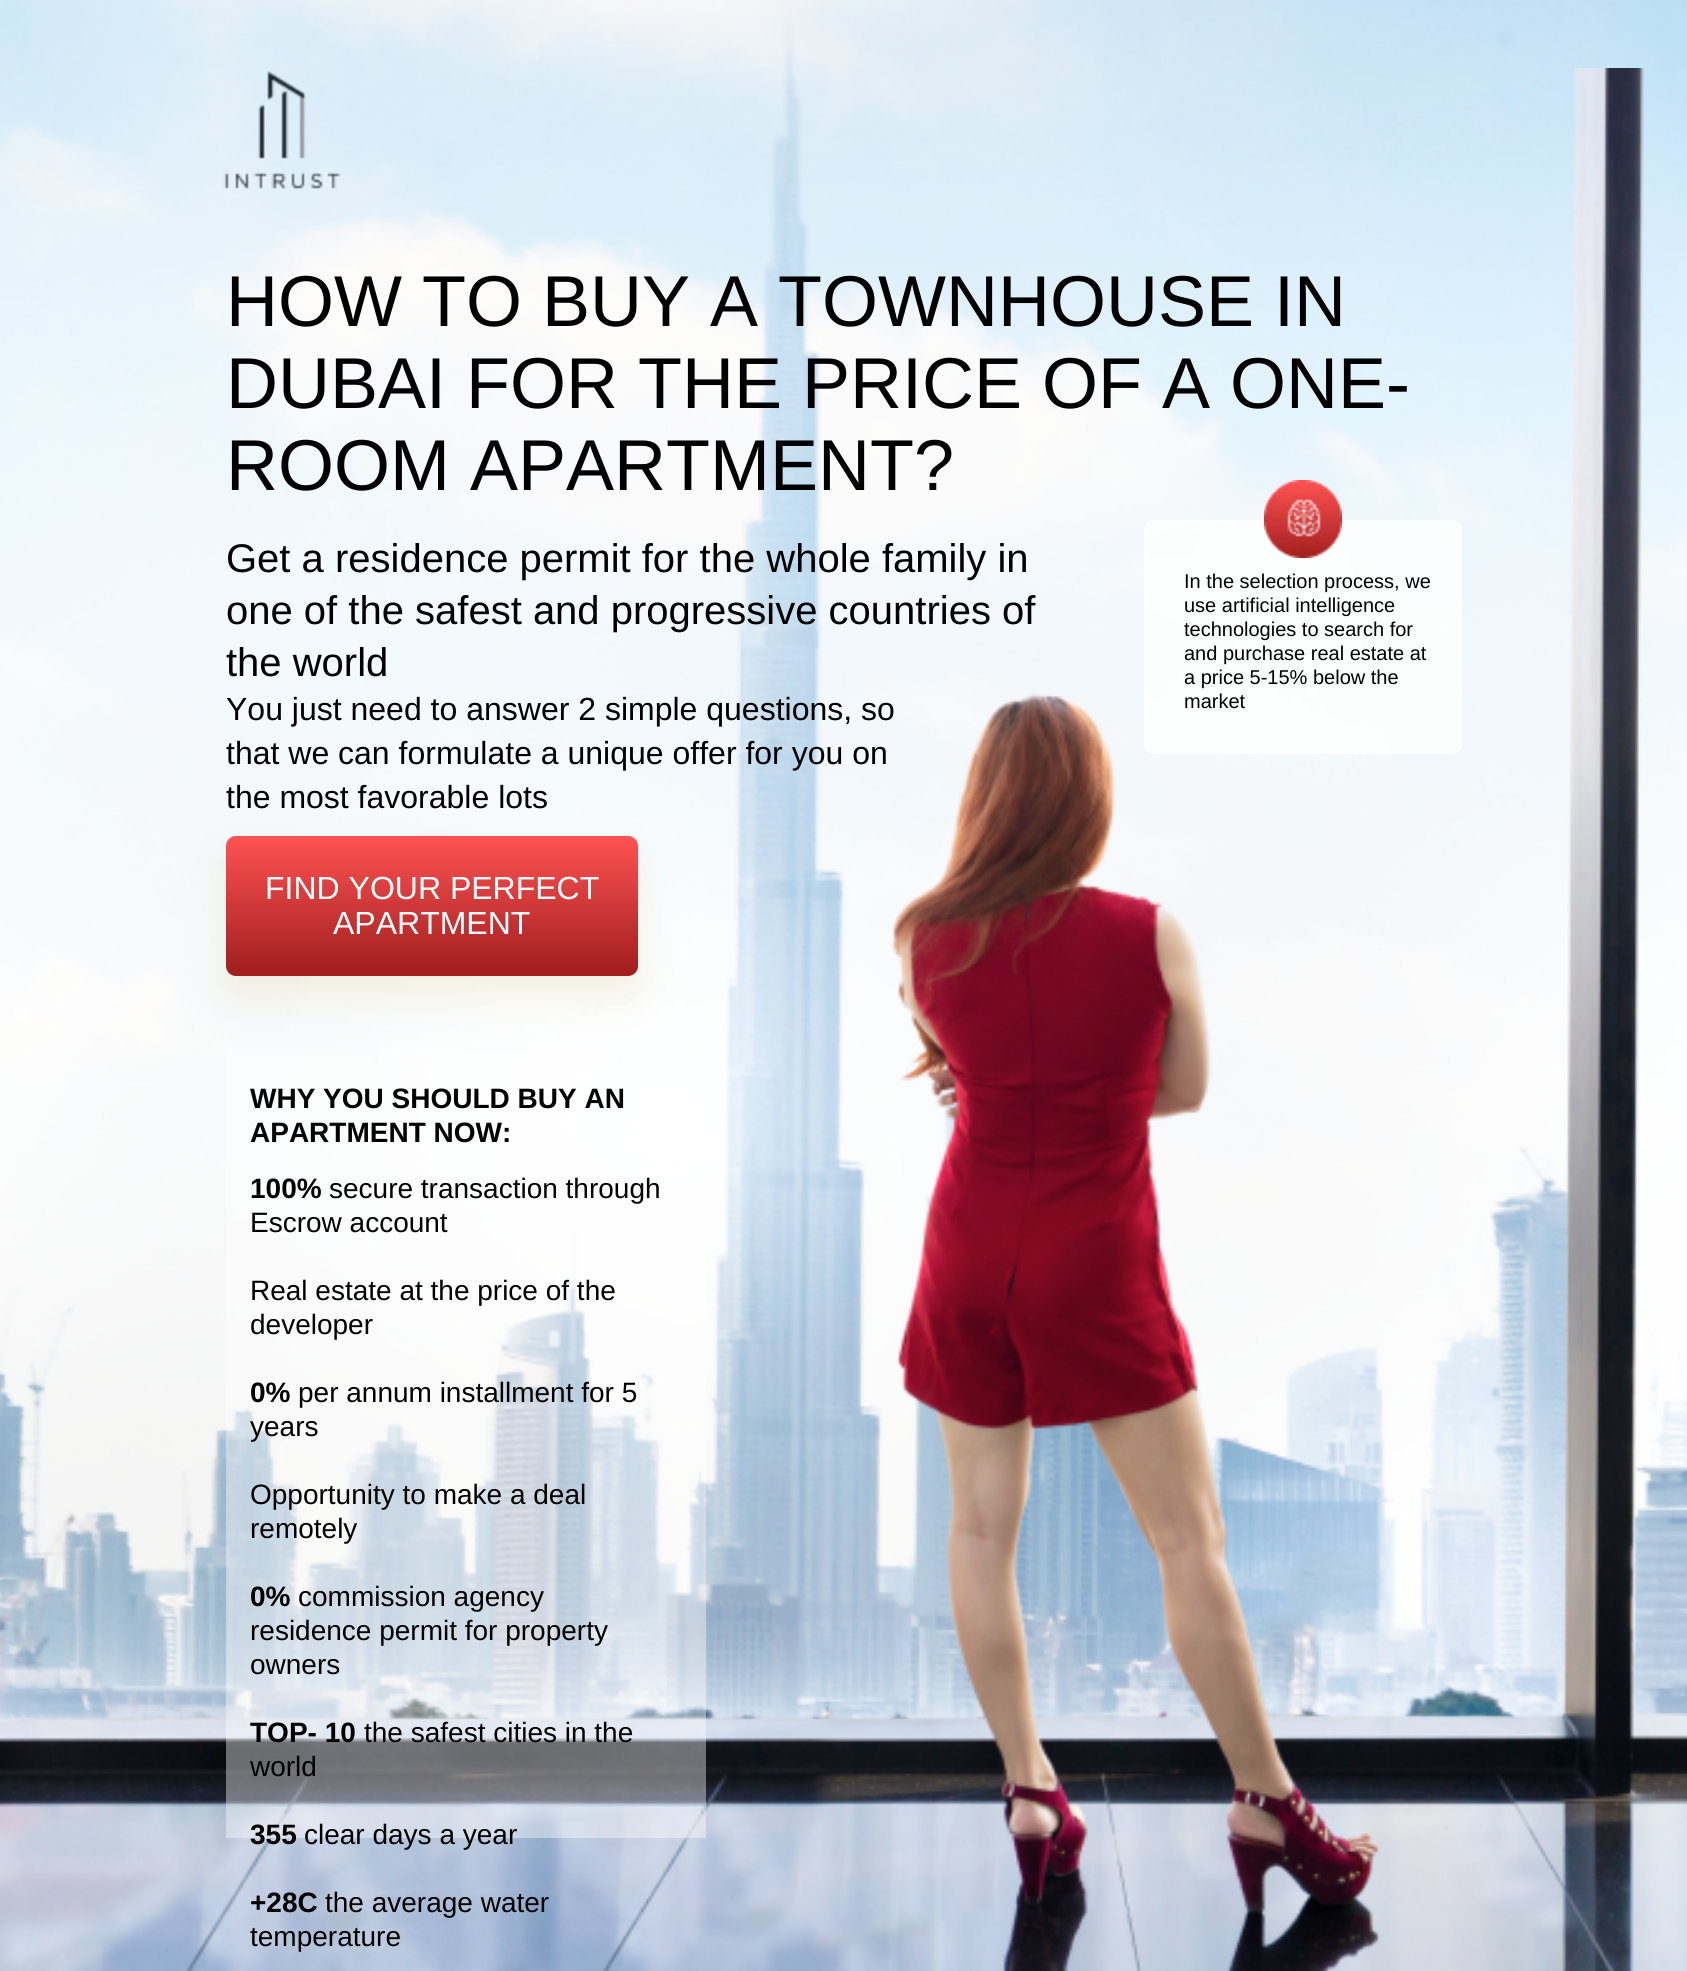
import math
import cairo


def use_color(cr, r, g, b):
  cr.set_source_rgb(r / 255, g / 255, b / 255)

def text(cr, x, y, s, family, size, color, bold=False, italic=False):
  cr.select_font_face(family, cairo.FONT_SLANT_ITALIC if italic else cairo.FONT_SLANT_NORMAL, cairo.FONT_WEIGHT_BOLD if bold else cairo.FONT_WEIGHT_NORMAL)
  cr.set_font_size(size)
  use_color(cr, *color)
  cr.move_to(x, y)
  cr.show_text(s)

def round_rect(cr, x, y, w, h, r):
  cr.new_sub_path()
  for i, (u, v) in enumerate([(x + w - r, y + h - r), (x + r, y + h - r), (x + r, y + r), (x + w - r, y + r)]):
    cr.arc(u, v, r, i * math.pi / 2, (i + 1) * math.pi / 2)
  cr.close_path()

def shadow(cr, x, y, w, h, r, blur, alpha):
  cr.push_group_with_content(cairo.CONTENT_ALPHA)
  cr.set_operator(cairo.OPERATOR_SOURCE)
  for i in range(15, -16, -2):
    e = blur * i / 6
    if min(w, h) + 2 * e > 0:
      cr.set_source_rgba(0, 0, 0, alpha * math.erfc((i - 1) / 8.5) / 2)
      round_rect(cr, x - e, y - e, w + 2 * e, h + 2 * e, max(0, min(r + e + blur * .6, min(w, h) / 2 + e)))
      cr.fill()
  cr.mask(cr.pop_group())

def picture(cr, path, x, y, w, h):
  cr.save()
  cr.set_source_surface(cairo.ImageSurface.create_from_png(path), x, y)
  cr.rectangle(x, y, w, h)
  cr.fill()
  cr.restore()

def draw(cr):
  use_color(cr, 255, 255, 255)
  cr.paint()
  picture(cr, "img_01.png", 0, 0, 1687, 1722)
  picture(cr, "img_02.png", 0, 68, 1687, 1903)
  picture(cr, "img_03.png", 223, 71, 118, 119)
  cr.set_source_rgba(1, 1, 1, 0.8)
  round_rect(cr, 1144, 520, 318, 234, 10)
  cr.fill()
  picture(cr, "img_04.png", 1264, 480, 78, 78)
  cr.set_source_rgba(1, 1, 1, 0.4)
  cr.rectangle(226, 1050, 480, 788)
  cr.fill()
  use_color(cr, 217, 188, 114)
  shadow(cr, 226, 856, 412, 140, 10, 20, 0.2)
  gradient = cairo.LinearGradient(432, 836, 432, 976)
  gradient.add_color_stop_rgba(0, 1, 0.325, 0.325, 1)
  gradient.add_color_stop_rgba(0.96, 0.639, 0.122, 0.122, 1)
  cr.set_source(gradient)
  round_rect(cr, 226, 836, 412, 140, 10)
  cr.fill()
  text(cr, 226, 326, "HOW TO BUY A TOWNHOUSE IN", "Liberation Sans", 72, (0, 0, 0))
  text(cr, 226, 408, "DUBAI FOR THE PRICE OF A ONE-", "Liberation Sans", 72, (0, 0, 0))
  text(cr, 226, 490, "ROOM APARTMENT?", "Liberation Sans", 72, (0, 0, 0))
  text(cr, 226, 572, "Get a residence permit for the whole family in", "Liberation Sans", 40, (0, 0, 0))
  text(cr, 226, 624, "one of the safest and progressive countries of", "Liberation Sans", 40, (0, 0, 0))
  text(cr, 226, 676, "the world", "Liberation Sans", 40, (0, 0, 0))
  text(cr, 1184, 588, "In the selection process, we", "Liberation Sans", 20, (0, 0, 0))
  text(cr, 1184, 612, "use artificial intelligence", "Liberation Sans", 20, (0, 0, 0))
  text(cr, 1184, 636, "technologies to search for", "Liberation Sans", 20, (0, 0, 0))
  text(cr, 1184, 660, "and purchase real estate at", "Liberation Sans", 20, (0, 0, 0))
  text(cr, 1184, 684, "a price 5-15% below the", "Liberation Sans", 20, (0, 0, 0))
  text(cr, 1184, 708, "market", "Liberation Sans", 20, (0, 0, 0))
  text(cr, 226, 720, "You just need to answer 2 simple questions, so", "Liberation Sans", 32, (0, 0, 0))
  text(cr, 226, 764, "that we can formulate a unique offer for you on", "Liberation Sans", 32, (0, 0, 0))
  text(cr, 226, 808, "the most favorable lots", "Liberation Sans", 32, (0, 0, 0))
  text(cr, 265, 899, "FIND YOUR PERFECT", "Liberation Sans", 32, (255, 255, 255))
  text(cr, 333, 934, "APARTMENT", "Liberation Sans", 32, (255, 255, 255))
  text(cr, 250, 1108, "WHY YOU SHOULD BUY AN", "Liberation Sans", 28, (0, 0, 0), bold=True)
  text(cr, 250, 1142, "APARTMENT NOW:", "Liberation Sans", 28, (0, 0, 0), bold=True)
  text(cr, 250, 1198, "100%", "Liberation Sans", 28, (0, 0, 0), bold=True)
  text(cr, 329, 1198, "secure transaction through", "Liberation Sans", 28, (0, 0, 0))
  text(cr, 250, 1232, "Escrow account", "Liberation Sans", 28, (0, 0, 0))
  text(cr, 250, 1300, "Real estate at the price of the", "Liberation Sans", 28, (0, 0, 0))
  text(cr, 250, 1334, "developer", "Liberation Sans", 28, (0, 0, 0))
  text(cr, 250, 1402, "0%", "Liberation Sans", 28, (0, 0, 0), bold=True)
  text(cr, 298, 1402, "per annum installment for 5", "Liberation Sans", 28, (0, 0, 0))
  text(cr, 250, 1436, "years", "Liberation Sans", 28, (0, 0, 0))
  text(cr, 250, 1504, "Opportunity to make a deal", "Liberation Sans", 28, (0, 0, 0))
  text(cr, 250, 1538, "remotely", "Liberation Sans", 28, (0, 0, 0))
  text(cr, 250, 1606, "0%", "Liberation Sans", 28, (0, 0, 0), bold=True)
  text(cr, 298, 1606, "commission agency", "Liberation Sans", 28, (0, 0, 0))
  text(cr, 250, 1640, "residence permit for property", "Liberation Sans", 28, (0, 0, 0))
  text(cr, 250, 1674, "owners", "Liberation Sans", 28, (0, 0, 0))
  text(cr, 250, 1742, "TOP- 10", "Liberation Sans", 28, (0, 0, 0), bold=True)
  text(cr, 364, 1742, "the safest cities in the", "Liberation Sans", 28, (0, 0, 0))
  text(cr, 250, 1776, "world", "Liberation Sans", 28, (0, 0, 0))
  text(cr, 250, 1844, "355", "Liberation Sans", 28, (0, 0, 0), bold=True)
  text(cr, 304, 1844, "clear days a year", "Liberation Sans", 28, (0, 0, 0))
  text(cr, 250, 1912, "+28С", "Liberation Sans", 28, (0, 0, 0), bold=True)
  text(cr, 325, 1912, "the average water", "Liberation Sans", 28, (0, 0, 0))
  text(cr, 250, 1946, "temperature", "Liberation Sans", 28, (0, 0, 0))


surface = cairo.ImageSurface(cairo.FORMAT_RGB24, 1687, 1971)
cr = cairo.Context(surface)
options = cairo.FontOptions()
options.set_hint_metrics(cairo.HINT_METRICS_OFF)
options.set_hint_style(cairo.HINT_STYLE_NONE)
cr.set_font_options(options)
cr.set_miter_limit(4)
draw(cr)
surface.write_to_png("out.png")
